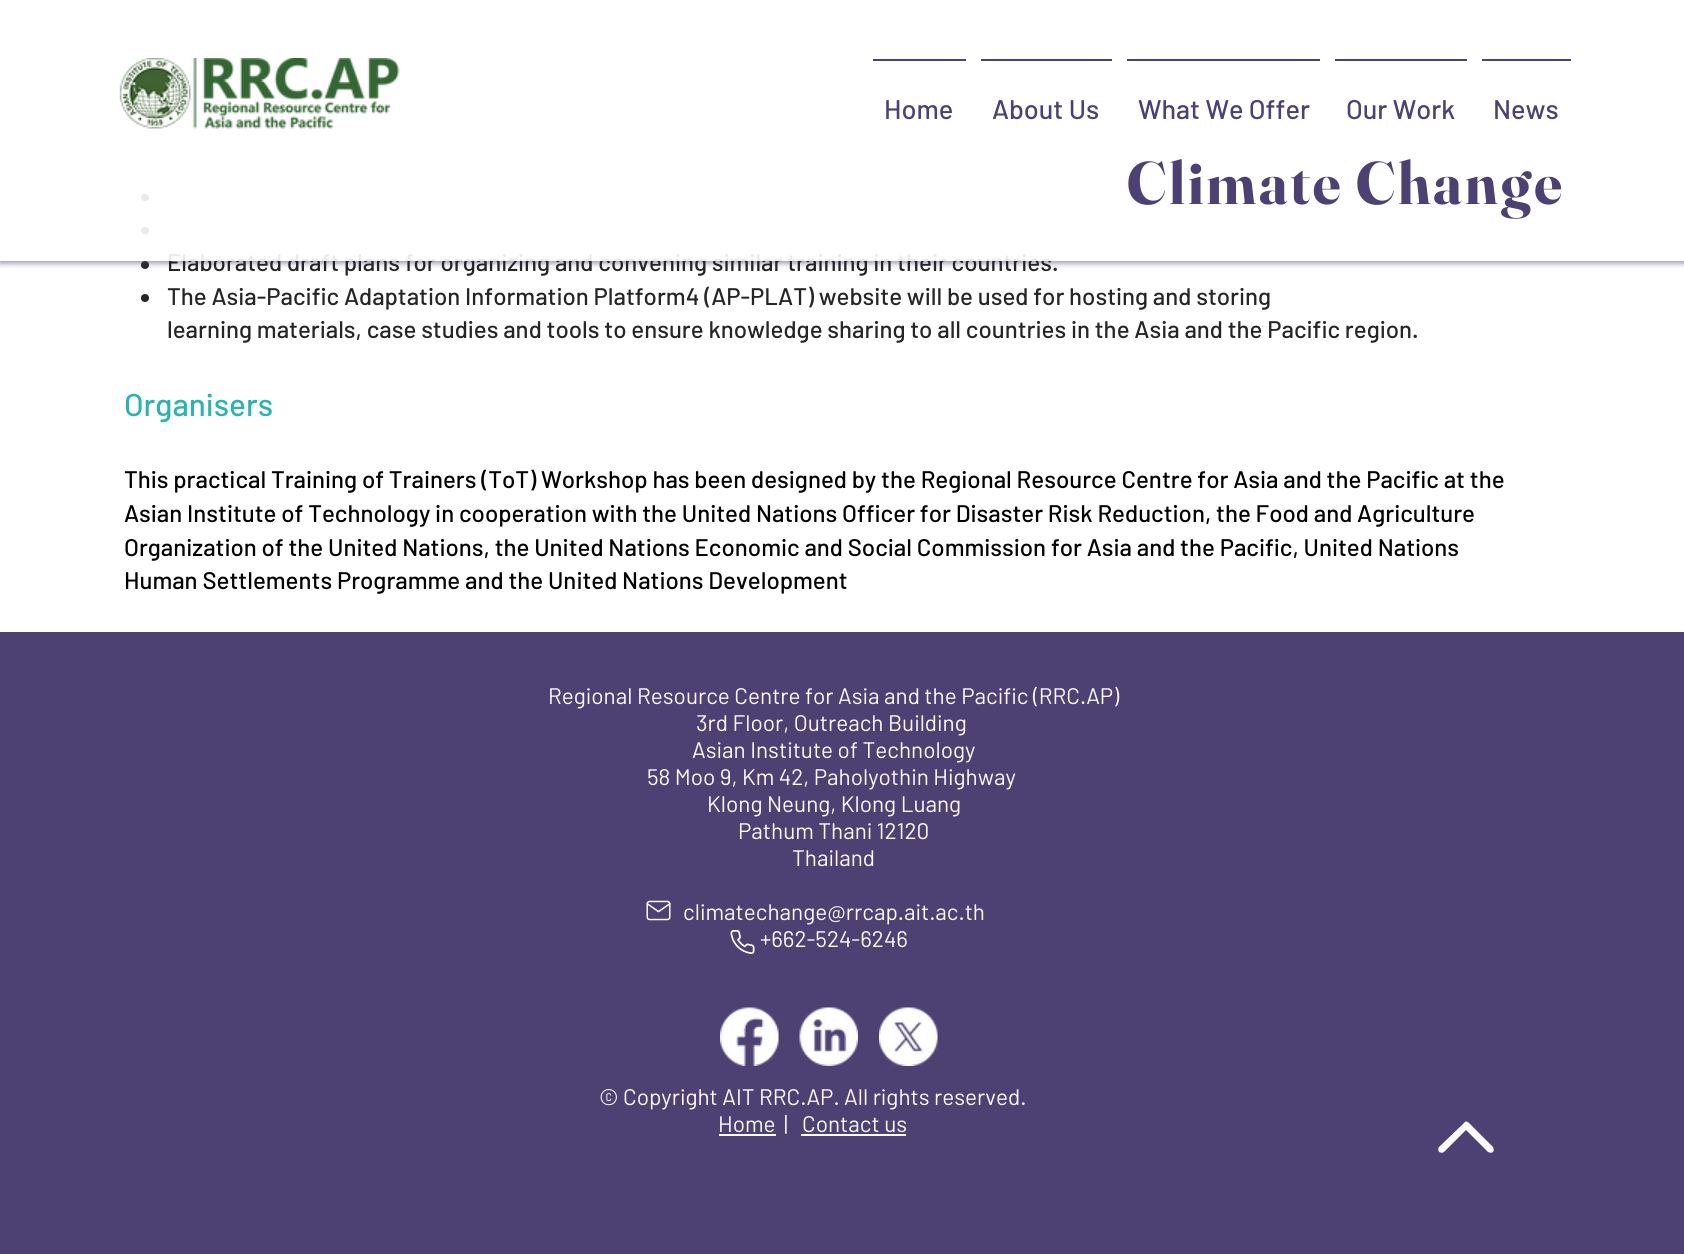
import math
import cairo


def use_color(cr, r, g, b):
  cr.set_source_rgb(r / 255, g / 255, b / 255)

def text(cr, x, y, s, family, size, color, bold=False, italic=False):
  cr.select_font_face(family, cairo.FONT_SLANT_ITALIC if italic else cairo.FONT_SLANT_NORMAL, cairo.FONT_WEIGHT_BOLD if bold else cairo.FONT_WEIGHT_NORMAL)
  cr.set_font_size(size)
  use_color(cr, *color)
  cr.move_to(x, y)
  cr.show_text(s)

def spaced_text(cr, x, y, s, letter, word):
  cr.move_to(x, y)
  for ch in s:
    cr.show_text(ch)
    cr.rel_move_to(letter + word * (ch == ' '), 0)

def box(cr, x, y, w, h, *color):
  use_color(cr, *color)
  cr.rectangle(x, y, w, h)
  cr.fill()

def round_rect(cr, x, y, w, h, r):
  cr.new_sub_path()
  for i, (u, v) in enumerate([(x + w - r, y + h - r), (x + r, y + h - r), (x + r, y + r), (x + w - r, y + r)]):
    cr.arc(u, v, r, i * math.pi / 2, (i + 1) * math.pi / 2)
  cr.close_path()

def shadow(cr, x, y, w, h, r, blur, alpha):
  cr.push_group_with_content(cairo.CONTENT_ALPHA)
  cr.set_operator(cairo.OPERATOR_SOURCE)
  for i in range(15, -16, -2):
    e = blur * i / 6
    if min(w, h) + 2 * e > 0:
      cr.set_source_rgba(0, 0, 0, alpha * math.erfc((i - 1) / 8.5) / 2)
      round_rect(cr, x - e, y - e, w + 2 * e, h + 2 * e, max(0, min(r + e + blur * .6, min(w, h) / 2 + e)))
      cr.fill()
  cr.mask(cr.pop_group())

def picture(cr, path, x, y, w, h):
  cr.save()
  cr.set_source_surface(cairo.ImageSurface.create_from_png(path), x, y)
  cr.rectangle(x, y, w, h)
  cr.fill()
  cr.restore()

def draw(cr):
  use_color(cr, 255, 255, 255)
  cr.paint()
  use_color(cr, 37, 37, 37)
  round_rect(cr, 141, 194, 8, 7, 3.5)
  cr.fill()
  round_rect(cr, 141, 227, 8, 7, 3.5)
  cr.fill()
  cr.arc(145, 265, 4, 0, 2 * math.pi)
  cr.fill()
  cr.save()
  cr.rectangle(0, 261, 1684, 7)
  cr.clip()
  use_color(cr, 77, 65, 115)
  shadow(cr, 0, 2, 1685, 261, 0, 3, 0.6)
  cr.restore()
  picture(cr, "img_01.png", 119, 58, 281, 71)
  box(cr, 873, 59, 93, 2, 77, 65, 115)
  box(cr, 981, 59, 131, 2, 77, 65, 115)
  box(cr, 1127, 59, 193, 2, 77, 65, 115)
  box(cr, 1335, 59, 132, 2, 77, 65, 115)
  box(cr, 1482, 59, 89, 2, 77, 65, 115)
  use_color(cr, 37, 37, 37)
  cr.arc(145, 298, 4, 0, 2 * math.pi)
  cr.fill()
  box(cr, 0, 632, 1684, 622, 77, 65, 115)
  picture(cr, "img_02.png", 646, 900, 25, 21)
  picture(cr, "img_03.png", 730, 930, 25, 24)
  picture(cr, "img_04.png", 720, 1007, 59, 59)
  picture(cr, "img_05.png", 799, 1007, 59, 59)
  picture(cr, "img_06.png", 879, 1007, 59, 59)
  box(cr, 719, 1134, 57, 2, 255, 255, 255)
  box(cr, 801, 1134, 105, 2, 255, 255, 255)
  use_color(cr, 250, 250, 250)
  cr.new_path()
  cr.move_to(1444, 1152)
  cr.line_to(1466, 1130)
  cr.line_to(1488, 1152)
  cr.curve_to(1490, 1153, 1492, 1153, 1493, 1152)
  cr.curve_to(1494, 1151, 1494, 1149, 1493, 1147)
  cr.line_to(1469, 1123)
  cr.curve_to(1467, 1121, 1465, 1121, 1464, 1123)
  cr.line_to(1439, 1147)
  cr.curve_to(1438, 1148, 1438, 1150, 1439, 1152)
  cr.curve_to(1441, 1153, 1443, 1153, 1444, 1152)
  cr.close_path()
  cr.fill()
  text(cr, 884, 119, "Home", "Barlow Medium", 27, (77, 65, 115))
  text(cr, 992, 119, "About Us", "Barlow Medium", 27, (77, 65, 115))
  text(cr, 1138, 119, "What We Offer", "Barlow Medium", 27, (77, 65, 115))
  text(cr, 1346, 119, "Our Work", "Barlow Medium", 27, (77, 65, 115))
  text(cr, 1493, 119, "News", "Barlow Medium", 27, (77, 65, 115))
  cr.select_font_face("Fraunces", cairo.FONT_SLANT_NORMAL, cairo.FONT_WEIGHT_BOLD)
  cr.set_font_size(60)
  spaced_text(cr, 1127, 204, "Climate Change", 3, 0)
  text(cr, 167, 271, "Elaborated draft plans for organizing and convening similar training in their countries.", "Barlow Medium", 24, (37, 37, 37))
  cr.set_source_rgba(1, 1, 1, 0.9)
  cr.rectangle(141, 194, 910, 67)
  cr.fill()
  text(cr, 167, 305, "The Asia-Pacific Adaptation Information Platform4 (AP-PLAT) website will be used for hosting and storing", "Barlow Medium", 24, (37, 37, 37))
  text(cr, 167, 338, "learning materials, case studies and tools to ensure knowledge sharing to all countries in the Asia and the Pacific region.", "Barlow Medium", 24, (37, 37, 37))
  text(cr, 124, 416, "Organisers", "Barlow Medium", 31.5, (43, 179, 176))
  text(cr, 124, 488, "This practical Training of Trainers (ToT) Workshop has been designed by the Regional Resource Centre for Asia and the Pacific at the", "Barlow Medium", 24, (0, 0, 0))
  text(cr, 124, 522, "Asian Institute of Technology in cooperation with the United Nations Officer for Disaster Risk Reduction, the Food and Agriculture", "Barlow Medium", 24, (0, 0, 0))
  text(cr, 124, 556, "Organization of the United Nations, the United Nations Economic and Social Commission for Asia and the Pacific, United Nations", "Barlow Medium", 24, (0, 0, 0))
  text(cr, 124, 589, "Human Settlements Programme and the United Nations Development", "Barlow Medium", 24, (0, 0, 0))
  text(cr, 548, 704, "Regional Resource Centre for Asia and the Pacific (RRC.AP)", "Barlow", 22.5, (250, 250, 250))
  text(cr, 696, 731, "3rd Floor, Outreach Building", "Barlow", 22.5, (250, 250, 250))
  text(cr, 692, 758, "Asian Institute of Technology", "Barlow", 22.5, (250, 250, 250))
  text(cr, 647, 785, "58 Moo 9, Km 42, Paholyothin Highway", "Barlow", 22.5, (250, 250, 250))
  text(cr, 707, 812, "Klong Neung, Klong Luang", "Barlow", 22.5, (250, 250, 250))
  text(cr, 738, 839, "Pathum Thani 12120", "Barlow", 22.5, (250, 250, 250))
  text(cr, 792, 866, "Thailand", "Barlow", 22.5, (250, 250, 250))
  text(cr, 683, 920, "climatechange@rrcap.ait.ac.th", "Barlow", 22.5, (250, 250, 250))
  text(cr, 760, 947, "+662-524-6246", "Barlow", 22.5, (250, 250, 250))
  text(cr, 599, 1105, "© Copyright AIT RRC.AP. All rights reserved.", "Barlow", 22.5, (250, 250, 250))
  text(cr, 718, 1132, "Home", "Barlow", 22.5, (250, 250, 250))
  text(cr, 784, 1132, "|", "Barlow", 22.5, (250, 250, 250))
  text(cr, 802, 1132, "Contact us", "Barlow", 22.5, (250, 250, 250))


surface = cairo.ImageSurface(cairo.FORMAT_RGB24, 1684, 1254)
cr = cairo.Context(surface)
options = cairo.FontOptions()
options.set_hint_metrics(cairo.HINT_METRICS_OFF)
options.set_hint_style(cairo.HINT_STYLE_NONE)
cr.set_font_options(options)
cr.set_miter_limit(4)
draw(cr)
surface.write_to_png("out.png")
